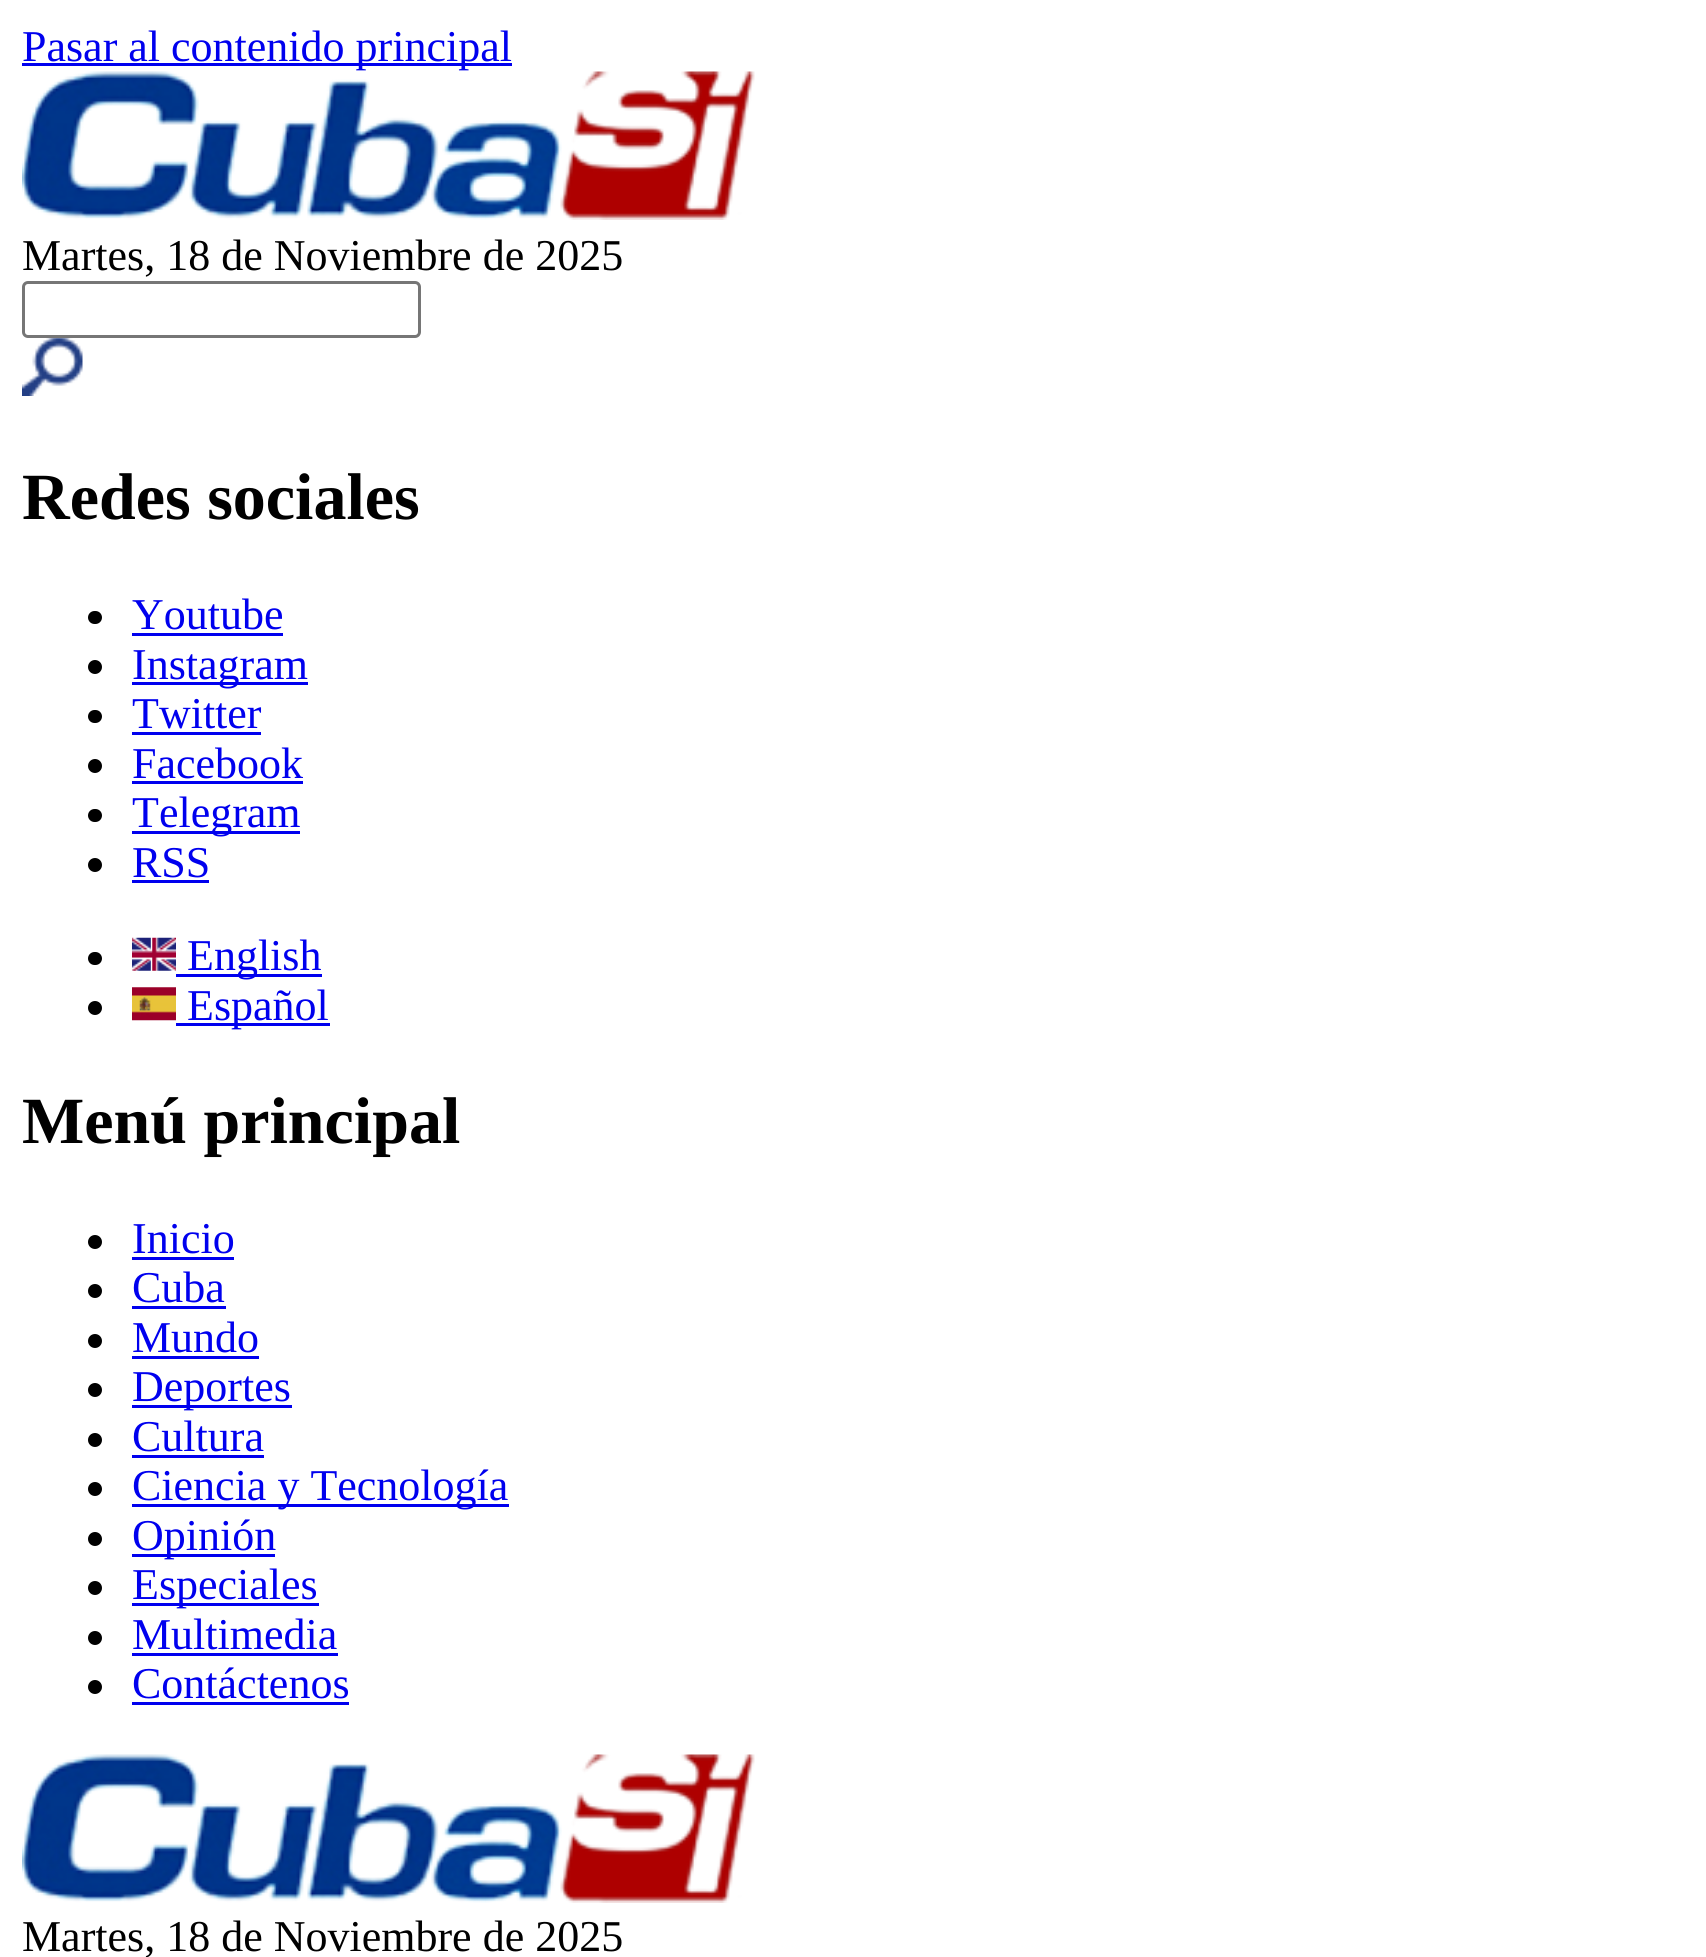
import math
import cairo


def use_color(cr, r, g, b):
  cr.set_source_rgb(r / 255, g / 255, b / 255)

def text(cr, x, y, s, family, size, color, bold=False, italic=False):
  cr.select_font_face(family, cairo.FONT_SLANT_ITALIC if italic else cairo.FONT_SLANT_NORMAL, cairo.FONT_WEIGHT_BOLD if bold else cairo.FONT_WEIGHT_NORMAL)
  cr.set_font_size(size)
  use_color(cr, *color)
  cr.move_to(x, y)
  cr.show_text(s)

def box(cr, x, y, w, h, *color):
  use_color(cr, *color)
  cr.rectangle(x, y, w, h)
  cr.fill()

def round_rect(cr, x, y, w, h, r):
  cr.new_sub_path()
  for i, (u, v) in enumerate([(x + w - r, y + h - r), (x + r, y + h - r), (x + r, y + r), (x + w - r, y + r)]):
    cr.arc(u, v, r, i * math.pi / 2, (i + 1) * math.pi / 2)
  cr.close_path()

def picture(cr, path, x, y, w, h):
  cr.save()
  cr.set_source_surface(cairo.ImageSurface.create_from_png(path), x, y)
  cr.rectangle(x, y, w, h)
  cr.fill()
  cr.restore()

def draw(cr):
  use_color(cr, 255, 255, 255)
  cr.paint()
  box(cr, 22, 63, 490, 3, 0, 0, 238)
  picture(cr, "img_01.png", 22, 71, 733, 149)
  round_rect(cr, 23.5, 282.5, 396, 54, 4.5)
  use_color(cr, 118, 118, 118)
  cr.set_line_width(3)
  cr.stroke()
  picture(cr, "img_02.png", 22, 338, 61, 58)
  use_color(cr, 0, 0, 0)
  round_rect(cr, 88, 611, 14, 13, 6.5)
  cr.fill()
  box(cr, 132, 633, 151, 3, 0, 0, 238)
  use_color(cr, 0, 0, 0)
  cr.arc(95, 667, 7, 0, 2 * math.pi)
  cr.fill()
  box(cr, 132, 682, 176, 3, 0, 0, 238)
  use_color(cr, 0, 0, 0)
  round_rect(cr, 88, 710, 14, 13, 6.5)
  cr.fill()
  box(cr, 132, 732, 129, 3, 0, 0, 238)
  use_color(cr, 0, 0, 0)
  cr.arc(95, 766, 7, 0, 2 * math.pi)
  cr.fill()
  box(cr, 132, 781, 171, 3, 0, 0, 238)
  use_color(cr, 0, 0, 0)
  round_rect(cr, 88, 809, 14, 13, 6.5)
  cr.fill()
  box(cr, 132, 831, 168, 3, 0, 0, 238)
  use_color(cr, 0, 0, 0)
  cr.arc(95, 865, 7, 0, 2 * math.pi)
  cr.fill()
  box(cr, 132, 880, 77, 3, 0, 0, 238)
  use_color(cr, 0, 0, 0)
  round_rect(cr, 88, 952, 14, 13, 6.5)
  cr.fill()
  picture(cr, "img_03.png", 132, 937, 44, 34)
  box(cr, 176, 974, 146, 3, 0, 0, 238)
  use_color(cr, 0, 0, 0)
  cr.arc(95, 1008, 7, 0, 2 * math.pi)
  cr.fill()
  picture(cr, "img_04.png", 132, 987, 44, 34)
  box(cr, 176, 1023, 154, 3, 0, 0, 238)
  use_color(cr, 0, 0, 0)
  cr.arc(95, 1242, 7, 0, 2 * math.pi)
  cr.fill()
  box(cr, 132, 1257, 102, 3, 0, 0, 238)
  use_color(cr, 0, 0, 0)
  cr.arc(95, 1291, 7, 0, 2 * math.pi)
  cr.fill()
  box(cr, 132, 1306, 94, 3, 0, 0, 238)
  use_color(cr, 0, 0, 0)
  cr.arc(95, 1341, 7, 0, 2 * math.pi)
  cr.fill()
  box(cr, 132, 1356, 127, 3, 0, 0, 238)
  use_color(cr, 0, 0, 0)
  cr.arc(95, 1390, 7, 0, 2 * math.pi)
  cr.fill()
  box(cr, 132, 1405, 160, 3, 0, 0, 238)
  use_color(cr, 0, 0, 0)
  cr.arc(95, 1440, 7, 0, 2 * math.pi)
  cr.fill()
  box(cr, 132, 1455, 132, 3, 0, 0, 238)
  use_color(cr, 0, 0, 0)
  cr.arc(95, 1489, 7, 0, 2 * math.pi)
  cr.fill()
  box(cr, 132, 1504, 377, 3, 0, 0, 238)
  use_color(cr, 0, 0, 0)
  cr.arc(95, 1539, 7, 0, 2 * math.pi)
  cr.fill()
  box(cr, 132, 1554, 143, 3, 0, 0, 238)
  use_color(cr, 0, 0, 0)
  cr.arc(95, 1588, 7, 0, 2 * math.pi)
  cr.fill()
  box(cr, 132, 1603, 187, 3, 0, 0, 238)
  use_color(cr, 0, 0, 0)
  cr.arc(95, 1638, 7, 0, 2 * math.pi)
  cr.fill()
  box(cr, 132, 1653, 206, 3, 0, 0, 238)
  use_color(cr, 0, 0, 0)
  cr.arc(95, 1687, 7, 0, 2 * math.pi)
  cr.fill()
  box(cr, 132, 1702, 217, 3, 0, 0, 238)
  picture(cr, "img_01.png", 22, 1754, 733, 149)
  text(cr, 22, 61, "Pasar al contenido principal", "Liberation Serif", 44, (0, 0, 238))
  text(cr, 22, 270, "Martes, 18 de Noviembre de 2025", "Liberation Serif", 44, (0, 0, 0))
  text(cr, 22, 519, "Redes sociales", "Liberation Serif", 66, (0, 0, 0), bold=True)
  text(cr, 132, 629, "Youtube", "Liberation Serif", 44, (0, 0, 238))
  text(cr, 132, 679, "Instagram", "Liberation Serif", 44, (0, 0, 238))
  text(cr, 132, 728, "Twitter", "Liberation Serif", 44, (0, 0, 238))
  text(cr, 132, 778, "Facebook", "Liberation Serif", 44, (0, 0, 238))
  text(cr, 132, 827, "Telegram", "Liberation Serif", 44, (0, 0, 238))
  text(cr, 132, 877, "RSS", "Liberation Serif", 44, (0, 0, 238))
  text(cr, 187, 970, "English", "Liberation Serif", 44, (0, 0, 238))
  text(cr, 187, 1020, "Español", "Liberation Serif", 44, (0, 0, 238))
  text(cr, 22, 1143, "Menú principal", "Liberation Serif", 66, (0, 0, 0), bold=True)
  text(cr, 132, 1253, "Inicio", "Liberation Serif", 44, (0, 0, 238))
  text(cr, 132, 1302, "Cuba", "Liberation Serif", 44, (0, 0, 238))
  text(cr, 132, 1352, "Mundo", "Liberation Serif", 44, (0, 0, 238))
  text(cr, 132, 1401, "Deportes", "Liberation Serif", 44, (0, 0, 238))
  text(cr, 132, 1451, "Cultura", "Liberation Serif", 44, (0, 0, 238))
  text(cr, 132, 1500, "Ciencia y Tecnología", "Liberation Serif", 44, (0, 0, 238))
  text(cr, 132, 1550, "Opinión", "Liberation Serif", 44, (0, 0, 238))
  text(cr, 132, 1599, "Especiales", "Liberation Serif", 44, (0, 0, 238))
  text(cr, 132, 1649, "Multimedia", "Liberation Serif", 44, (0, 0, 238))
  text(cr, 132, 1698, "Contáctenos", "Liberation Serif", 44, (0, 0, 238))
  text(cr, 22, 1951, "Martes, 18 de Noviembre de 2025", "Liberation Serif", 44, (0, 0, 0))


surface = cairo.ImageSurface(cairo.FORMAT_RGB24, 1706, 1957)
cr = cairo.Context(surface)
options = cairo.FontOptions()
options.set_hint_metrics(cairo.HINT_METRICS_OFF)
options.set_hint_style(cairo.HINT_STYLE_NONE)
cr.set_font_options(options)
cr.set_miter_limit(4)
draw(cr)
surface.write_to_png("out.png")
